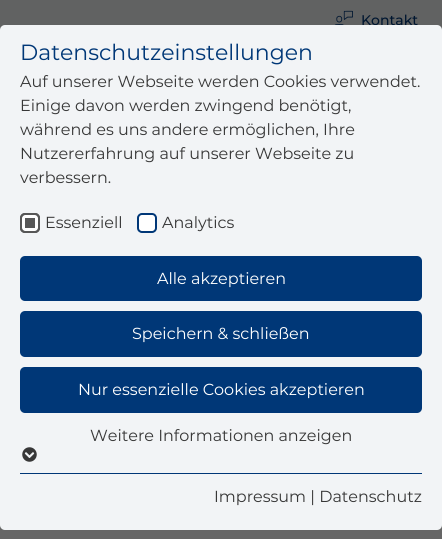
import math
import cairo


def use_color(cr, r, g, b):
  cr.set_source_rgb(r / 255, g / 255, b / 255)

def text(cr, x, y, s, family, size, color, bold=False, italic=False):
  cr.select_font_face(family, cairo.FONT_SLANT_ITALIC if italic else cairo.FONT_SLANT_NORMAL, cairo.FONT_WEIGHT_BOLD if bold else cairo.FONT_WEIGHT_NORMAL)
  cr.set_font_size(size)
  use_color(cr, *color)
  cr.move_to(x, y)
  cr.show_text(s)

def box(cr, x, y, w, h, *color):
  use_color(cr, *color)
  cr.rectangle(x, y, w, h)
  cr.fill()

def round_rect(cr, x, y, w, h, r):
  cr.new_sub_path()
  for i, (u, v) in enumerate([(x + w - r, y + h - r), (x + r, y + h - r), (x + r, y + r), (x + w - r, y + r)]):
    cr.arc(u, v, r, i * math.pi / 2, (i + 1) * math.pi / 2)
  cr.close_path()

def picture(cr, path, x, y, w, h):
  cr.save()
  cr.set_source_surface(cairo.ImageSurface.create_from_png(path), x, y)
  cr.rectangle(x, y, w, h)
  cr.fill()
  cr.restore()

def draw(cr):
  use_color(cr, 102, 102, 102)
  cr.paint()
  box(cr, 0, 0, 442, 30, 97, 98, 98)
  picture(cr, "img_01.png", 334, 10, 19, 15)
  text(cr, 361, 25, "Kontakt", "Montserrat Medium", 14, (0, 22, 48))
  use_color(cr, 242, 244, 246)
  round_rect(cr, 0, 25, 442, 505, 5)
  cr.fill()
  text(cr, 20, 60, "Datenschutzeinstellungen", "Montserrat", 22, (0, 55, 119))
  text(cr, 20, 87, "Auf unserer Webseite werden Cookies verwendet.", "Montserrat", 16, (55, 55, 55))
  text(cr, 20, 111, "Einige davon werden zwingend benötigt,", "Montserrat", 16, (55, 55, 55))
  text(cr, 20, 135, "während es uns andere ermöglichen, Ihre", "Montserrat", 16, (55, 55, 55))
  text(cr, 20, 159, "Nutzererfahrung auf unserer Webseite zu", "Montserrat", 16, (55, 55, 55))
  text(cr, 20, 183, "verbessern.", "Montserrat", 16, (55, 55, 55))
  use_color(cr, 87, 87, 87)
  round_rect(cr, 20, 213, 20, 20, 5)
  cr.fill()
  round_rect(cr, 23.5, 216.5, 13, 13, 1.5)
  use_color(cr, 255, 255, 255)
  cr.set_line_width(3)
  cr.stroke()
  round_rect(cr, 21, 214, 18, 18, 4)
  use_color(cr, 87, 87, 87)
  cr.set_line_width(2)
  cr.stroke()
  text(cr, 45, 228, "Essenziell", "Montserrat", 16, (55, 55, 55))
  use_color(cr, 255, 255, 255)
  round_rect(cr, 138, 214, 18, 18, 4)
  cr.fill_preserve()
  use_color(cr, 0, 55, 119)
  cr.stroke()
  text(cr, 162, 228, "Analytics", "Montserrat", 16, (55, 55, 55))
  use_color(cr, 0, 55, 119)
  round_rect(cr, 20, 256, 402, 45, 5)
  cr.fill()
  text(cr, 157, 284, "Alle akzeptieren", "Montserrat", 16, (255, 255, 255))
  use_color(cr, 0, 55, 119)
  round_rect(cr, 20, 311, 402, 46, 5)
  cr.fill()
  text(cr, 132, 339, "Speichern & schließen", "Montserrat", 16, (255, 255, 255))
  use_color(cr, 0, 55, 119)
  round_rect(cr, 20, 367, 402, 46, 5)
  cr.fill()
  text(cr, 78, 395, "Nur essenzielle Cookies akzeptieren", "Montserrat", 16, (255, 255, 255))
  text(cr, 90, 441, "Weitere Informationen anzeigen", "Montserrat", 16, (55, 55, 55))
  picture(cr, "img_02.png", 22, 447, 15, 15)
  box(cr, 20, 473, 402, 1, 0, 55, 119)
  text(cr, 214, 502, "Impressum | Datenschutz", "Montserrat", 16, (55, 55, 55))


surface = cairo.ImageSurface(cairo.FORMAT_RGB24, 442, 539)
cr = cairo.Context(surface)
options = cairo.FontOptions()
options.set_hint_metrics(cairo.HINT_METRICS_OFF)
options.set_hint_style(cairo.HINT_STYLE_NONE)
cr.set_font_options(options)
cr.set_miter_limit(4)
draw(cr)
surface.write_to_png("out.png")
